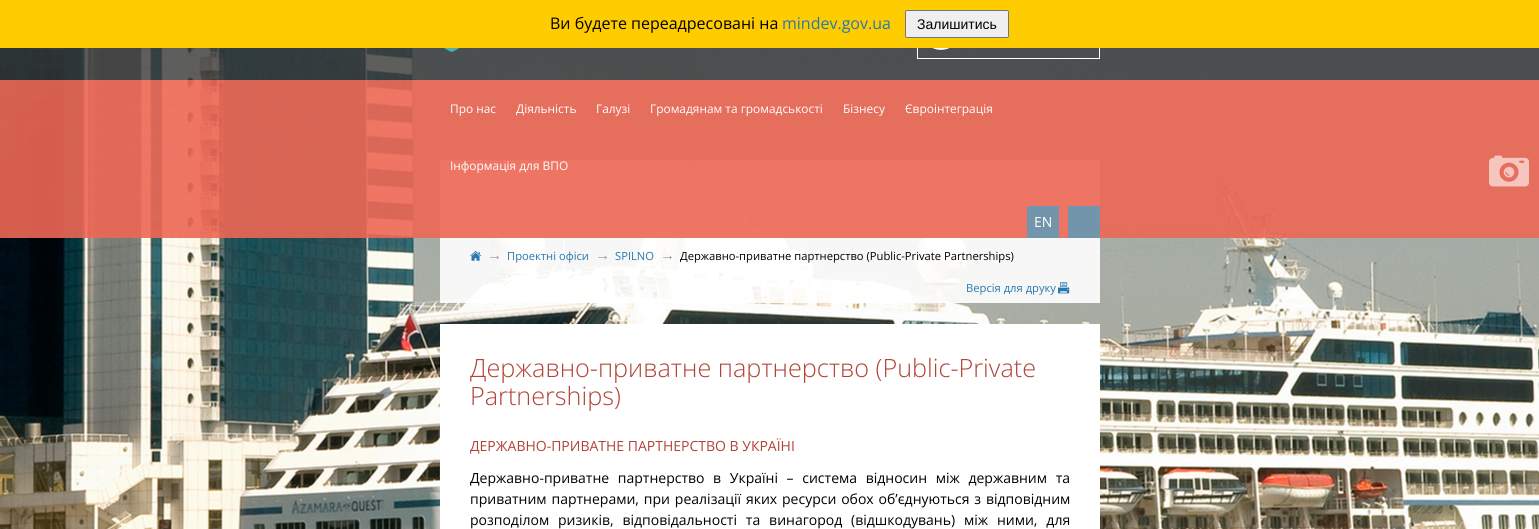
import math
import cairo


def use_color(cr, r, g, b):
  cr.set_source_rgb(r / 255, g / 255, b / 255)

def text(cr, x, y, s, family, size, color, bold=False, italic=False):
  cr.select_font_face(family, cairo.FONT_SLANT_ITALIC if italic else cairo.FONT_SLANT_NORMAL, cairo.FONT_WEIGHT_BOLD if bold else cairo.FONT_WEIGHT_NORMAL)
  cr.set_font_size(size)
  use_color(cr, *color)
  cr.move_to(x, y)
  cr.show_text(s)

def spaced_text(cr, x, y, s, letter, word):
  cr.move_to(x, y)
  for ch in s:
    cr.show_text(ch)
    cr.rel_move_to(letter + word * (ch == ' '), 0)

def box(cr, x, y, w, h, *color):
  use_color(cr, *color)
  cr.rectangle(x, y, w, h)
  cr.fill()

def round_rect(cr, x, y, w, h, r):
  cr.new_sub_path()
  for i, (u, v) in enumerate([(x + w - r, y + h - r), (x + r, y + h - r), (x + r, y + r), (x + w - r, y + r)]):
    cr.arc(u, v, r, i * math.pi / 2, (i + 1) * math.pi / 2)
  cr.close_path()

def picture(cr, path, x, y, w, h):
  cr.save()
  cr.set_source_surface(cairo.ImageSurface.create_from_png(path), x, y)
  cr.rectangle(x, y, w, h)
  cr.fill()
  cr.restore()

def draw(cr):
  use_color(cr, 255, 255, 255)
  cr.paint()
  picture(cr, "img_04.png", 0, 48, 1539, 481)
  cr.set_source_rgba(0.216, 0.216, 0.216, 0.8)
  cr.rectangle(0, 48, 1539, 32)
  cr.fill()
  cr.rectangle(917.5, 20.5, 182, 38)
  use_color(cr, 255, 255, 255)
  cr.set_line_width(1)
  cr.stroke()
  box(cr, 0, 0, 1539, 48, 255, 204, 0)
  use_color(cr, 239, 239, 239)
  round_rect(cr, 905.5, 10.5, 103, 27, 1.5)
  cr.fill_preserve()
  use_color(cr, 118, 118, 118)
  cr.stroke()
  picture(cr, "img_01.png", 444, 48, 34, 4)
  picture(cr, "img_02.png", 932, 48, 18, 2)
  cr.set_source_rgba(1, 1, 1, 0.9)
  cr.rectangle(440, 160, 660, 143)
  cr.fill()
  cr.set_source_rgba(0.933, 0.404, 0.333, 0.9)
  cr.rectangle(0, 80, 1539, 158)
  cr.fill()
  box(cr, 1027, 206, 32, 32, 115, 149, 171)
  box(cr, 1068, 206, 32, 32, 115, 149, 171)
  picture(cr, "img_03.png", 1489, 155, 40, 32)
  picture(cr, "img_05.png", 470, 250, 12, 11)
  picture(cr, "img_06.png", 1058, 282, 12, 12)
  box(cr, 440, 324, 660, 205, 255, 255, 255)
  text(cr, 550, 29, "Ви будете переадресовані на", "Open Sans", 16, (0, 0, 0))
  text(cr, 782, 29, "mindev.gov.ua", "Open Sans", 16, (39, 120, 176))
  text(cr, 917, 29, "Залишитись", "Liberation Sans", 14, (0, 0, 0))
  text(cr, 450, 113, "Про нас", "Open Sans", 11.9, (255, 255, 255))
  text(cr, 516, 113, "Діяльність", "Open Sans", 11.9, (255, 255, 255))
  text(cr, 596, 113, "Галузі", "Open Sans", 11.9, (255, 255, 255))
  text(cr, 650, 113, "Громадянам та громадськості", "Open Sans", 11.9, (255, 255, 255))
  text(cr, 843, 113, "Бізнесу", "Open Sans", 11.9, (255, 255, 255))
  text(cr, 905, 113, "Євроінтеграція", "Open Sans", 11.9, (255, 255, 255))
  text(cr, 450, 170, "Інформація для ВПО", "Open Sans", 11.9, (255, 255, 255))
  text(cr, 1034, 227, "EN", "Open Sans", 14, (255, 255, 255))
  text(cr, 487, 260, "→", "Liberation Sans", 15, (153, 153, 153))
  text(cr, 507, 260, "Проектні офіси", "Open Sans", 11.2, (39, 120, 176))
  text(cr, 595, 260, "→", "Liberation Sans", 15, (153, 153, 153))
  text(cr, 615, 260, "SPILNO", "Open Sans", 11.2, (39, 120, 176))
  text(cr, 660, 260, "→", "Liberation Sans", 15, (153, 153, 153))
  text(cr, 680, 260, "Державно-приватне партнерство (Public-Private Partnerships)", "Open Sans", 11.2, (0, 0, 0))
  text(cr, 966, 292, "Версiя для друку", "Open Sans", 11.2, (39, 120, 176))
  text(cr, 470, 377, "Державно-приватне партнерство (Public-Private", "Open Sans Light", 25.2, (177, 67, 53))
  text(cr, 470, 405, "Partnerships)", "Open Sans Light", 25.2, (177, 67, 53))
  cr.save()
  cr.rectangle(470, 438, 600, 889)
  cr.clip()
  text(cr, 470, 451, "ДЕРЖАВНО-ПРИВАТНЕ ПАРТНЕРСТВО В УКРАЇНІ", "Open Sans", 14, (177, 67, 53))
  use_color(cr, 0, 0, 0)
  spaced_text(cr, 470, 483, "Державно-приватне партнерство в Україні – система відносин між державним та", 0, 5)
  cr.restore()
  cr.select_font_face("Open Sans")
  cr.set_font_size(14)
  use_color(cr, 0, 0, 0)
  spaced_text(cr, 470, 504, "приватним партнерами, при реалізації яких ресурси обох об’єднуються з відповідним", 0, 1.25)
  spaced_text(cr, 470, 525, "розподілом ризиків, відповідальності та винагород (відшкодувань) між ними, для", 0, 5.25)


surface = cairo.ImageSurface(cairo.FORMAT_RGB24, 1539, 529)
cr = cairo.Context(surface)
options = cairo.FontOptions()
options.set_hint_metrics(cairo.HINT_METRICS_OFF)
options.set_hint_style(cairo.HINT_STYLE_NONE)
cr.set_font_options(options)
cr.set_miter_limit(4)
draw(cr)
surface.write_to_png("out.png")
